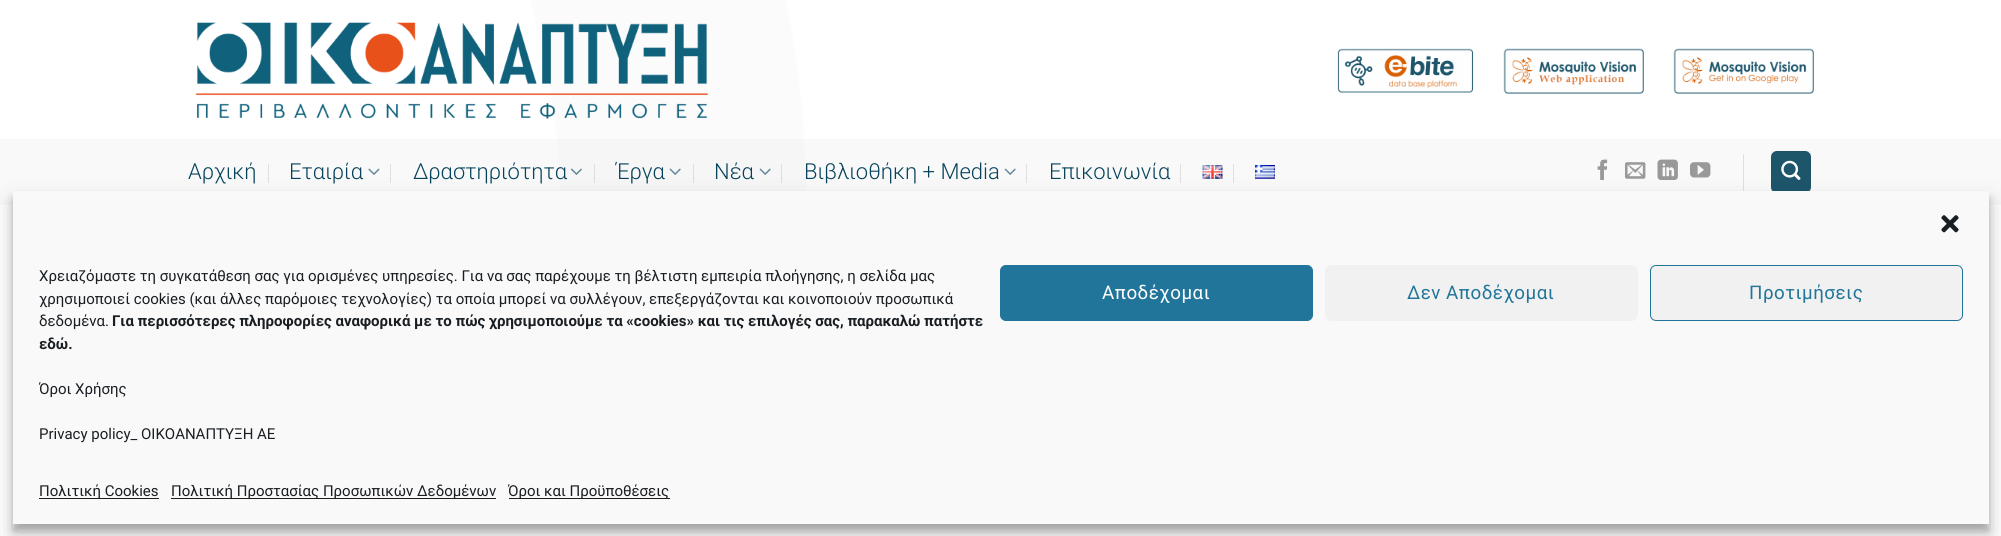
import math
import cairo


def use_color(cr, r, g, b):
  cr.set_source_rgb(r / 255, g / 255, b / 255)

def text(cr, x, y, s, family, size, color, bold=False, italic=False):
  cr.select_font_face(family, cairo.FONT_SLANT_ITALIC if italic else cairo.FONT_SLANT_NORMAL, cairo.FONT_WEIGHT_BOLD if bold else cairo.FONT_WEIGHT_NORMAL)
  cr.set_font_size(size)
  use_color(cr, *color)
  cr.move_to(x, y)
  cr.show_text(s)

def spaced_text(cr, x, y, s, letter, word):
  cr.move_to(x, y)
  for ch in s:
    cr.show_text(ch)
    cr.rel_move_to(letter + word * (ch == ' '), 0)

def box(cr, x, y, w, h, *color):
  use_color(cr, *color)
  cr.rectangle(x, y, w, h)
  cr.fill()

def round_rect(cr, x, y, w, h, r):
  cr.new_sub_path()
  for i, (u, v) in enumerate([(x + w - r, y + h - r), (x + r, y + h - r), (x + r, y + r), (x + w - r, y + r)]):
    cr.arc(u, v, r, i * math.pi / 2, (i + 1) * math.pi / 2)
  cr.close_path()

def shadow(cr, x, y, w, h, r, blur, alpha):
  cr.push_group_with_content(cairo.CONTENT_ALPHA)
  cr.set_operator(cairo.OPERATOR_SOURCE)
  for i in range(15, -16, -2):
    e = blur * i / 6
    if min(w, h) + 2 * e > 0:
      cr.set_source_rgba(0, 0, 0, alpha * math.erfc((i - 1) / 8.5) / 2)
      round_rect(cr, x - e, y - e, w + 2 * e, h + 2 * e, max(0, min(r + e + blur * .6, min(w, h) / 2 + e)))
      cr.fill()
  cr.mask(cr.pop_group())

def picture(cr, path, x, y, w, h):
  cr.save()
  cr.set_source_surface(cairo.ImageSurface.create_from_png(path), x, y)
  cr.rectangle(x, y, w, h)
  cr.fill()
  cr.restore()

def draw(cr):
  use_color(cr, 255, 255, 255)
  cr.paint()
  picture(cr, "img_01.png", 530, 0, 277, 191)
  picture(cr, "img_02.png", 195, 22, 513, 97)
  picture(cr, "img_03.png", 1337, 48, 137, 45)
  picture(cr, "img_04.png", 1503, 48, 141, 46)
  picture(cr, "img_05.png", 1673, 48, 141, 46)
  cr.set_source_rgba(0.918, 0.918, 0.918, 0.27)
  cr.rectangle(0, 139, 2001, 66)
  cr.fill()
  box(cr, 268, 164, 1, 19, 224, 224, 224)
  picture(cr, "img_06.png", 368, 168, 12, 7)
  box(cr, 390, 164, 1, 19, 224, 224, 224)
  picture(cr, "img_07.png", 570, 168, 12, 7)
  box(cr, 594, 164, 1, 19, 222, 222, 223)
  picture(cr, "img_08.png", 669, 168, 12, 7)
  box(cr, 693, 164, 1, 19, 222, 222, 223)
  picture(cr, "img_08.png", 759, 168, 12, 7)
  box(cr, 781, 164, 1, 19, 222, 222, 223)
  picture(cr, "img_09.png", 1004, 168, 12, 7)
  box(cr, 1026, 164, 1, 19, 224, 224, 224)
  box(cr, 1180, 164, 1, 19, 224, 224, 224)
  picture(cr, "img_10.png", 1202, 165, 21, 14)
  box(cr, 1233, 164, 1, 19, 224, 224, 224)
  picture(cr, "img_11.png", 1255, 165, 20, 14)
  picture(cr, "img_12.png", 1597, 159, 11, 21)
  picture(cr, "img_13.png", 1625, 162, 21, 17)
  picture(cr, "img_14.png", 1657, 159, 21, 21)
  picture(cr, "img_15.png", 1690, 162, 21, 16)
  box(cr, 1743, 154, 1, 37, 224, 224, 224)
  use_color(cr, 29, 85, 107)
  round_rect(cr, 1771, 151, 40, 42, 6)
  cr.fill()
  cr.rectangle(1771.5, 151.5, 39, 41)
  cr.set_source_rgba(0, 0, 0, 0.05)
  cr.set_line_width(1)
  cr.stroke()
  picture(cr, "img_16.png", 1781, 160, 20, 20)
  use_color(cr, 0, 0, 0)
  shadow(cr, 13, 199, 1976, 332, 0, 4, 0.23)
  shadow(cr, 13, 204, 1976, 332, 0, 12.5, 0.19)
  box(cr, 13, 191, 1976, 333, 249, 249, 249)
  picture(cr, "img_17.png", 1941, 215, 18, 18)
  use_color(cr, 33, 117, 155)
  round_rect(cr, 1000.5, 265.5, 312, 55, 5.5)
  cr.fill_preserve()
  cr.stroke()
  use_color(cr, 241, 241, 241)
  round_rect(cr, 1325, 265, 313, 56, 6)
  cr.fill()
  round_rect(cr, 1650.5, 265.5, 312, 55, 5.5)
  cr.fill_preserve()
  use_color(cr, 33, 117, 155)
  cr.stroke()
  box(cr, 39, 498, 120, 1, 25, 30, 35)
  box(cr, 171, 498, 325, 1, 25, 30, 35)
  box(cr, 509, 498, 161, 1, 25, 30, 35)
  text(cr, 188, 179, "Αρχική", "Roboto Light", 22, (6, 67, 91))
  text(cr, 289, 179, "Εταιρία", "Roboto Light", 22, (6, 67, 91))
  text(cr, 413, 179, "Δραστηριότητα", "Roboto Light", 22, (6, 67, 91))
  text(cr, 616, 179, "Έργα", "Roboto Light", 22, (6, 67, 91))
  text(cr, 714, 179, "Νέα", "Roboto Light", 22, (6, 67, 91))
  text(cr, 804, 179, "Bιβλιοθήκη + Media", "Roboto Light", 22, (6, 67, 91))
  text(cr, 1049, 179, "Επικοινωνία", "Roboto Light", 22, (6, 67, 91))
  text(cr, 39, 281, "Χρειαζόμαστε τη συγκατάθεση σας για ορισμένες υπηρεσίες. Για να σας παρέχουμε τη βέλτιστη εμπειρία πλοήγησης, η σελίδα μας", "Roboto", 15, (25, 30, 35))
  text(cr, 39, 304, "χρησιμοποιεί cookies (και άλλες παρόμοιες τεχνολογίες) τα οποία μπορεί να συλλέγουν, επεξεργάζονται και κοινοποιούν προσωπικά", "Roboto", 15, (25, 30, 35))
  text(cr, 39, 326, "δεδομένα.", "Roboto", 15, (25, 30, 35))
  text(cr, 112, 326, "Για περισσότερες πληροφορίες αναφορικά με το πώς χρησιμοποιούμε τα «cookies» και τις επιλογές σας, παρακαλώ πατήστε", "Roboto", 15, (25, 30, 35), bold=True)
  text(cr, 39, 349, "εδώ.", "Roboto", 15, (25, 30, 35), bold=True)
  text(cr, 39, 394, "Όροι Χρήσης", "Roboto", 15, (25, 30, 35))
  text(cr, 39, 439, "Privacy policy_ ΟΙΚΟΑΝΑΠΤΥΞΗ ΑΕ", "Roboto", 15, (25, 30, 35))
  cr.set_font_size(18.75)
  use_color(cr, 255, 255, 255)
  spaced_text(cr, 1102, 299, "Αποδέχομαι", 0.5, 0)
  use_color(cr, 33, 117, 155)
  spaced_text(cr, 1407, 299, "Δεν Αποδέχομαι", 0.5, 0)
  spaced_text(cr, 1749, 299, "Προτιμήσεις", 0.5, 0)
  text(cr, 39, 496, "Πολιτική Cookies", "Roboto", 15, (25, 30, 35))
  text(cr, 171, 496, "Πολιτική Προστασίας Προσωπικών Δεδομένων", "Roboto", 15, (25, 30, 35))
  text(cr, 508, 496, "Όροι και Προϋποθέσεις", "Roboto", 15, (25, 30, 35))


surface = cairo.ImageSurface(cairo.FORMAT_RGB24, 2001, 536)
cr = cairo.Context(surface)
options = cairo.FontOptions()
options.set_hint_metrics(cairo.HINT_METRICS_OFF)
options.set_hint_style(cairo.HINT_STYLE_NONE)
cr.set_font_options(options)
cr.set_miter_limit(4)
draw(cr)
surface.write_to_png("out.png")
